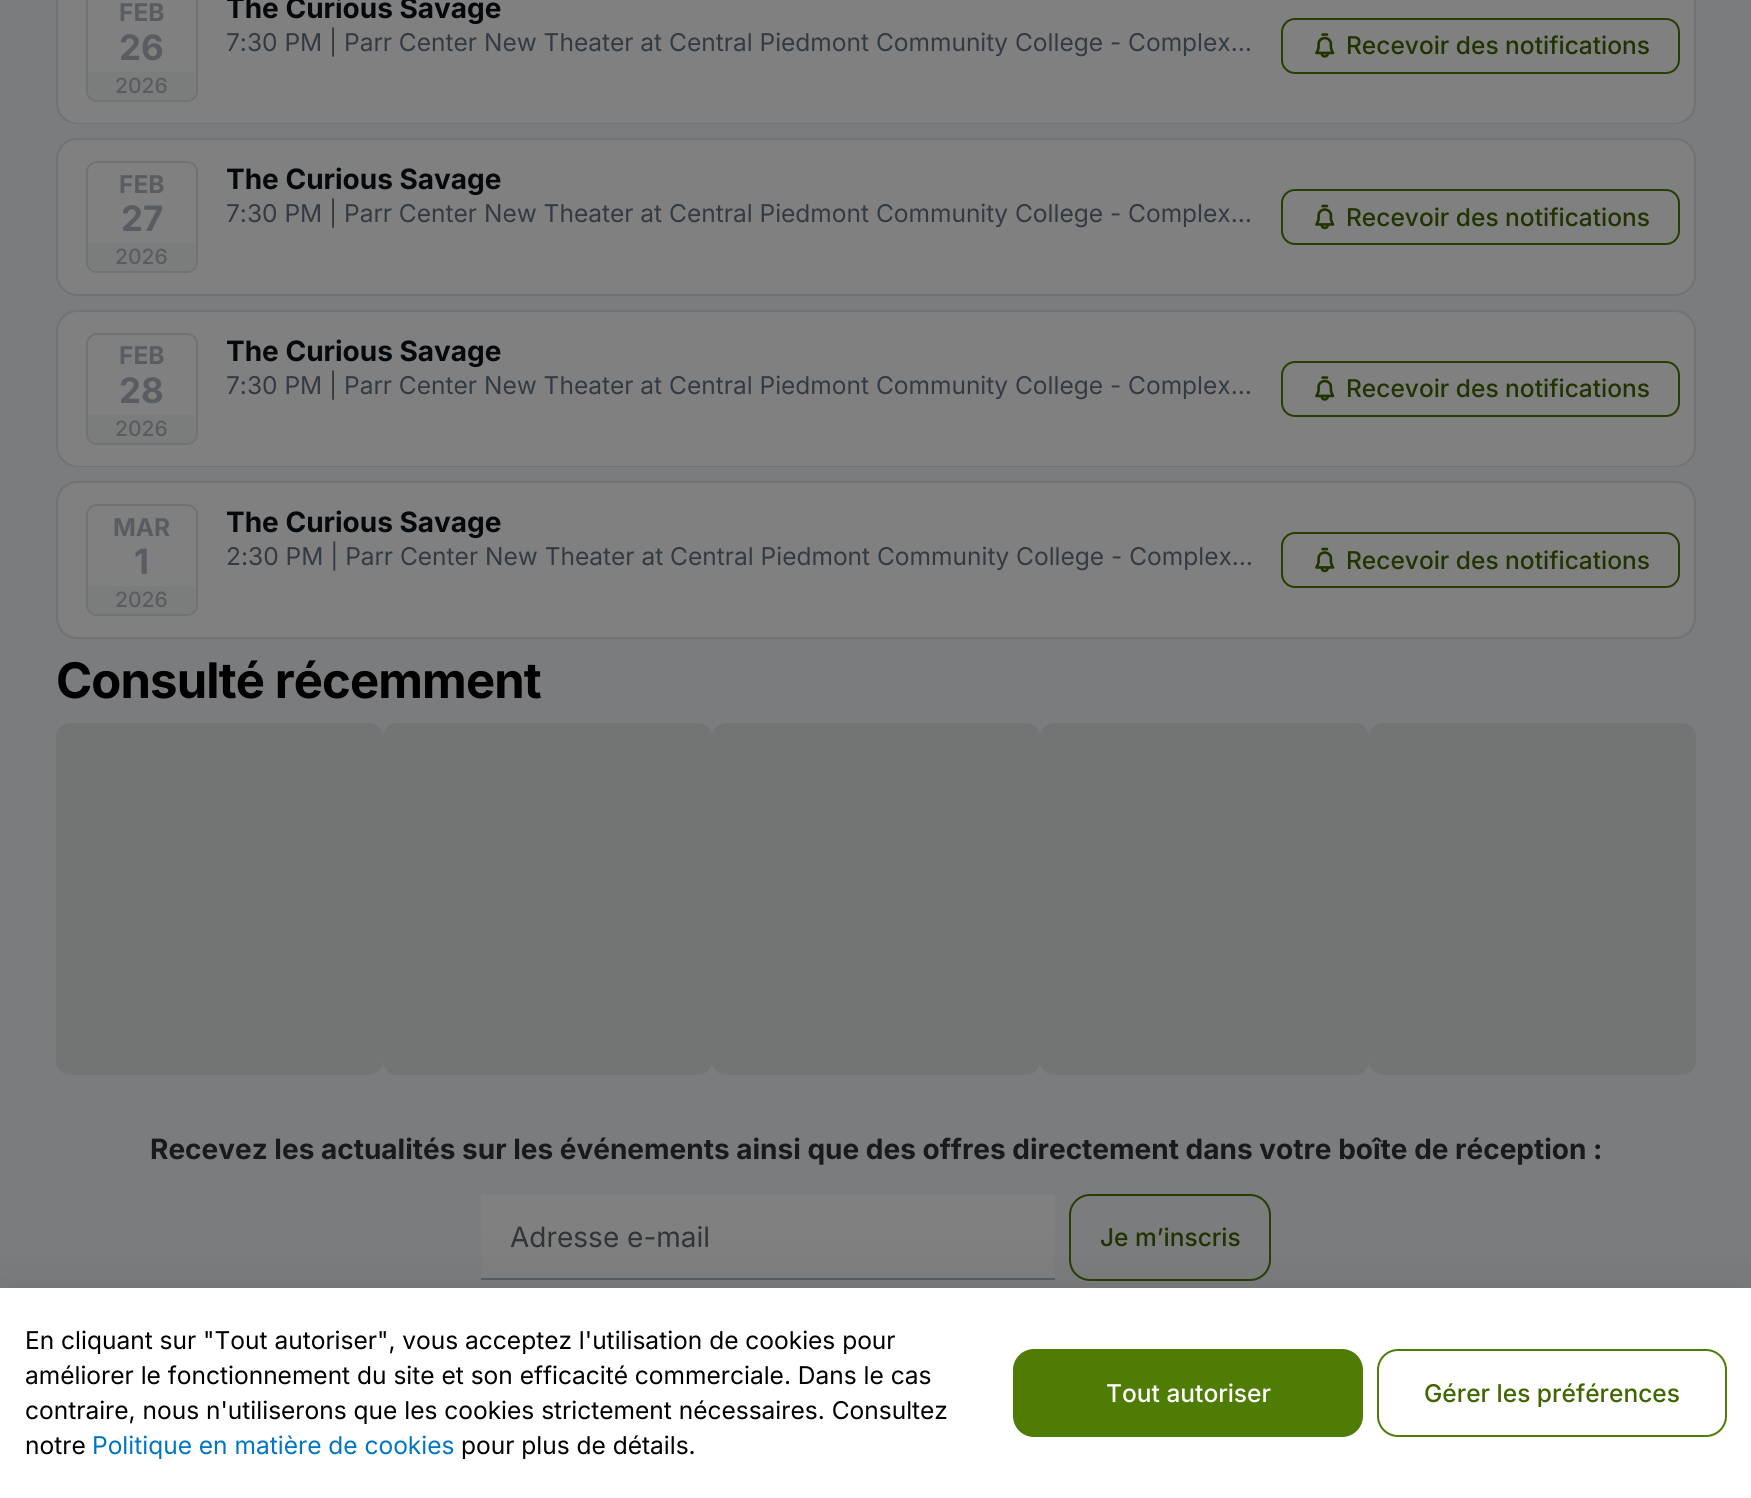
import math
import cairo


def use_color(cr, r, g, b):
  cr.set_source_rgb(r / 255, g / 255, b / 255)

def text(cr, x, y, s, family, size, color, bold=False, italic=False):
  cr.select_font_face(family, cairo.FONT_SLANT_ITALIC if italic else cairo.FONT_SLANT_NORMAL, cairo.FONT_WEIGHT_BOLD if bold else cairo.FONT_WEIGHT_NORMAL)
  cr.set_font_size(size)
  use_color(cr, *color)
  cr.move_to(x, y)
  cr.show_text(s)

def spaced_text(cr, x, y, s, letter, word):
  cr.move_to(x, y)
  for ch in s:
    cr.show_text(ch)
    cr.rel_move_to(letter + word * (ch == ' '), 0)

def box(cr, x, y, w, h, *color):
  use_color(cr, *color)
  cr.rectangle(x, y, w, h)
  cr.fill()

def round_rect(cr, x, y, w, h, r):
  cr.new_sub_path()
  for i, (u, v) in enumerate([(x + w - r, y + h - r), (x + r, y + h - r), (x + r, y + r), (x + w - r, y + r)]):
    cr.arc(u, v, r, i * math.pi / 2, (i + 1) * math.pi / 2)
  cr.close_path()

def shadow(cr, x, y, w, h, r, blur, alpha):
  cr.push_group_with_content(cairo.CONTENT_ALPHA)
  cr.set_operator(cairo.OPERATOR_SOURCE)
  for i in range(15, -16, -2):
    e = blur * i / 6
    if min(w, h) + 2 * e > 0:
      cr.set_source_rgba(0, 0, 0, alpha * math.erfc((i - 1) / 8.5) / 2)
      round_rect(cr, x - e, y - e, w + 2 * e, h + 2 * e, max(0, min(r + e + blur * .6, min(w, h) / 2 + e)))
      cr.fill()
  cr.mask(cr.pop_group())

def picture(cr, path, x, y, w, h):
  cr.save()
  cr.set_source_surface(cairo.ImageSurface.create_from_png(path), x, y)
  cr.rectangle(x, y, w, h)
  cr.fill()
  cr.restore()

def draw(cr):
  use_color(cr, 123, 124, 125)
  cr.paint()
  round_rect(cr, 57, -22, 1638, 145, 20)
  use_color(cr, 112, 114, 115)
  cr.stroke()
  use_color(cr, 128, 128, 128)
  round_rect(cr, 58, -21, 1636, 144, 21)
  cr.fill()
  round_rect(cr, 87, -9, 110, 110, 10)
  use_color(cr, 112, 114, 115)
  cr.stroke()
  use_color(cr, 123, 124, 124)
  cr.new_path()
  cr.move_to(88, 72)
  cr.line_to(196, 72)
  cr.line_to(196, 91)
  cr.curve_to(196, 96, 192, 100, 187, 100)
  cr.line_to(97, 100)
  cr.curve_to(92, 100, 88, 96, 88, 91)
  cr.close_path()
  cr.fill()
  round_rect(cr, 1282, 19, 397, 54, 13)
  use_color(cr, 39, 62, 3)
  cr.stroke()
  picture(cr, "img_01.png", 1315, 33, 20, 25)
  round_rect(cr, 57, 139, 1638, 156, 20)
  use_color(cr, 112, 114, 115)
  cr.stroke()
  use_color(cr, 128, 128, 128)
  round_rect(cr, 58, 140, 1636, 154, 21)
  cr.fill()
  round_rect(cr, 87, 162, 110, 110, 10)
  use_color(cr, 112, 114, 115)
  cr.stroke()
  use_color(cr, 123, 124, 124)
  cr.new_path()
  cr.move_to(88, 243)
  cr.line_to(196, 243)
  cr.line_to(196, 262)
  cr.curve_to(196, 267, 192, 271, 187, 271)
  cr.line_to(97, 271)
  cr.curve_to(92, 271, 88, 267, 88, 262)
  cr.close_path()
  cr.fill()
  round_rect(cr, 1282, 190, 397, 54, 13)
  use_color(cr, 39, 62, 3)
  cr.stroke()
  picture(cr, "img_02.png", 1315, 204, 20, 26)
  round_rect(cr, 57, 311, 1638, 155, 20)
  use_color(cr, 112, 114, 115)
  cr.stroke()
  use_color(cr, 128, 128, 128)
  round_rect(cr, 58, 312, 1636, 154, 21)
  cr.fill()
  round_rect(cr, 87, 334, 110, 110, 10)
  use_color(cr, 112, 114, 115)
  cr.stroke()
  use_color(cr, 123, 124, 124)
  cr.new_path()
  cr.move_to(88, 415)
  cr.line_to(196, 415)
  cr.line_to(196, 434)
  cr.curve_to(196, 439, 192, 443, 187, 443)
  cr.line_to(97, 443)
  cr.curve_to(92, 443, 88, 439, 88, 434)
  cr.close_path()
  cr.fill()
  round_rect(cr, 1282, 362, 397, 54, 13)
  use_color(cr, 39, 62, 3)
  cr.stroke()
  picture(cr, "img_01.png", 1315, 376, 20, 25)
  round_rect(cr, 57, 482, 1638, 156, 20)
  use_color(cr, 112, 114, 115)
  cr.stroke()
  use_color(cr, 128, 128, 128)
  round_rect(cr, 58, 483, 1636, 154, 21)
  cr.fill()
  round_rect(cr, 87, 505, 110, 110, 10)
  use_color(cr, 112, 114, 115)
  cr.stroke()
  use_color(cr, 123, 124, 124)
  cr.new_path()
  cr.move_to(88, 586)
  cr.line_to(196, 586)
  cr.line_to(196, 605)
  cr.curve_to(196, 610, 192, 614, 187, 614)
  cr.line_to(97, 614)
  cr.curve_to(92, 614, 88, 610, 88, 605)
  cr.close_path()
  cr.fill()
  round_rect(cr, 1282, 533, 397, 54, 13)
  use_color(cr, 39, 62, 3)
  cr.stroke()
  picture(cr, "img_02.png", 1315, 547, 20, 26)
  use_color(cr, 115, 117, 117)
  round_rect(cr, 56, 723, 327, 352, 14)
  cr.fill()
  round_rect(cr, 383, 723, 329, 352, 14)
  cr.fill()
  round_rect(cr, 712, 723, 328, 352, 14)
  cr.fill()
  round_rect(cr, 1040, 723, 329, 352, 14)
  cr.fill()
  round_rect(cr, 1369, 723, 327, 352, 14)
  cr.fill()
  box(cr, 481, 1195, 574, 83, 128, 128, 128)
  box(cr, 481, 1278, 574, 2, 89, 93, 97)
  round_rect(cr, 1070, 1195, 200, 85, 20)
  use_color(cr, 39, 62, 3)
  cr.stroke()
  use_color(cr, 47, 52, 59)
  shadow(cr, 0, 1288, 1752, 210, 0, 28, 0.14)
  box(cr, 0, 1288, 1751, 210, 255, 255, 255)
  use_color(cr, 78, 124, 5)
  round_rect(cr, 1013, 1349, 350, 88, 21)
  cr.fill()
  round_rect(cr, 1378, 1350, 348, 86, 20)
  cr.stroke()
  text(cr, 119, 21, "FEB", "Inter", 24.5, (89, 93, 97), bold=True)
  text(cr, 119, 60, "26", "Inter", 35, (89, 93, 97), bold=True)
  text(cr, 115, 93, "2026", "Inter Medium", 21, (89, 93, 97))
  text(cr, 226, 18, "The Curious Savage", "Inter", 28, (5, 9, 12), bold=True)
  text(cr, 226, 51, "7:30 PM | Parr Center New Theater at Central Piedmont Community College - Complex…", "Inter", 24.5, (52, 58, 66))
  text(cr, 1346, 54, "Recevoir des notifications", "Inter Medium", 24.5, (32, 51, 0))
  text(cr, 119, 193, "FEB", "Inter", 24.5, (89, 93, 97), bold=True)
  text(cr, 121, 231, "27", "Inter", 35, (89, 93, 97), bold=True)
  text(cr, 115, 264, "2026", "Inter Medium", 21, (89, 93, 97))
  text(cr, 226, 189, "The Curious Savage", "Inter", 28, (5, 9, 12), bold=True)
  text(cr, 226, 222, "7:30 PM | Parr Center New Theater at Central Piedmont Community College - Complex…", "Inter", 24.5, (52, 58, 66))
  text(cr, 1346, 226, "Recevoir des notifications", "Inter Medium", 24.5, (32, 51, 0))
  text(cr, 119, 364, "FEB", "Inter", 24.5, (89, 93, 97), bold=True)
  text(cr, 119, 403, "28", "Inter", 35, (89, 93, 97), bold=True)
  text(cr, 115, 436, "2026", "Inter Medium", 21, (89, 93, 97))
  text(cr, 226, 361, "The Curious Savage", "Inter", 28, (5, 9, 12), bold=True)
  text(cr, 226, 394, "7:30 PM | Parr Center New Theater at Central Piedmont Community College - Complex…", "Inter", 24.5, (52, 58, 66))
  text(cr, 1346, 397, "Recevoir des notifications", "Inter Medium", 24.5, (32, 51, 0))
  text(cr, 113, 536, "MAR", "Inter", 24.5, (89, 93, 97), bold=True)
  text(cr, 134, 574, "1", "Inter", 35, (89, 93, 97), bold=True)
  text(cr, 115, 607, "2026", "Inter Medium", 21, (89, 93, 97))
  text(cr, 226, 532, "The Curious Savage", "Inter", 28, (5, 9, 12), bold=True)
  text(cr, 226, 565, "2:30 PM | Parr Center New Theater at Central Piedmont Community College - Complex…", "Inter", 24.5, (52, 58, 66))
  text(cr, 1346, 569, "Recevoir des notifications", "Inter Medium", 24.5, (32, 51, 0))
  cr.select_font_face("Inter", cairo.FONT_SLANT_NORMAL, cairo.FONT_WEIGHT_BOLD)
  cr.set_font_size(49)
  use_color(cr, 0, 0, 0)
  spaced_text(cr, 56, 698, "Consulté récemment", -0.9, 0)
  text(cr, 150, 1159, "Recevez les actualités sur les événements ainsi que des offres directement dans votre boîte de réception :", "Inter", 28, (24, 26, 30), bold=True)
  text(cr, 510, 1247, "Adresse e-mail", "Inter", 28, (48, 53, 56))
  text(cr, 1100, 1246, "Je m’inscris", "Inter Medium", 24.5, (32, 51, 0))
  text(cr, 25, 1349, "En cliquant sur \"Tout autoriser\", vous acceptez l'utilisation de cookies pour", "Inter", 24.5, (0, 0, 0))
  text(cr, 25, 1384, "améliorer le fonctionnement du site et son efficacité commerciale. Dans le cas", "Inter", 24.5, (0, 0, 0))
  text(cr, 25, 1419, "contraire, nous n'utiliserons que les cookies strictement nécessaires. Consultez", "Inter", 24.5, (0, 0, 0))
  text(cr, 25, 1454, "notre", "Inter", 24.5, (0, 0, 0))
  text(cr, 92, 1454, "Politique en matière de cookies", "Inter", 24.5, (0, 117, 196))
  text(cr, 461, 1454, "pour plus de détails.", "Inter", 24.5, (0, 0, 0))
  text(cr, 1106, 1402, "Tout autoriser", "Inter Medium", 24.5, (255, 255, 255))
  text(cr, 1424, 1402, "Gérer les préférences", "Inter Medium", 24.5, (63, 102, 0))


surface = cairo.ImageSurface(cairo.FORMAT_RGB24, 1751, 1498)
cr = cairo.Context(surface)
options = cairo.FontOptions()
options.set_hint_metrics(cairo.HINT_METRICS_OFF)
options.set_hint_style(cairo.HINT_STYLE_NONE)
cr.set_font_options(options)
cr.set_miter_limit(4)
draw(cr)
surface.write_to_png("out.png")
